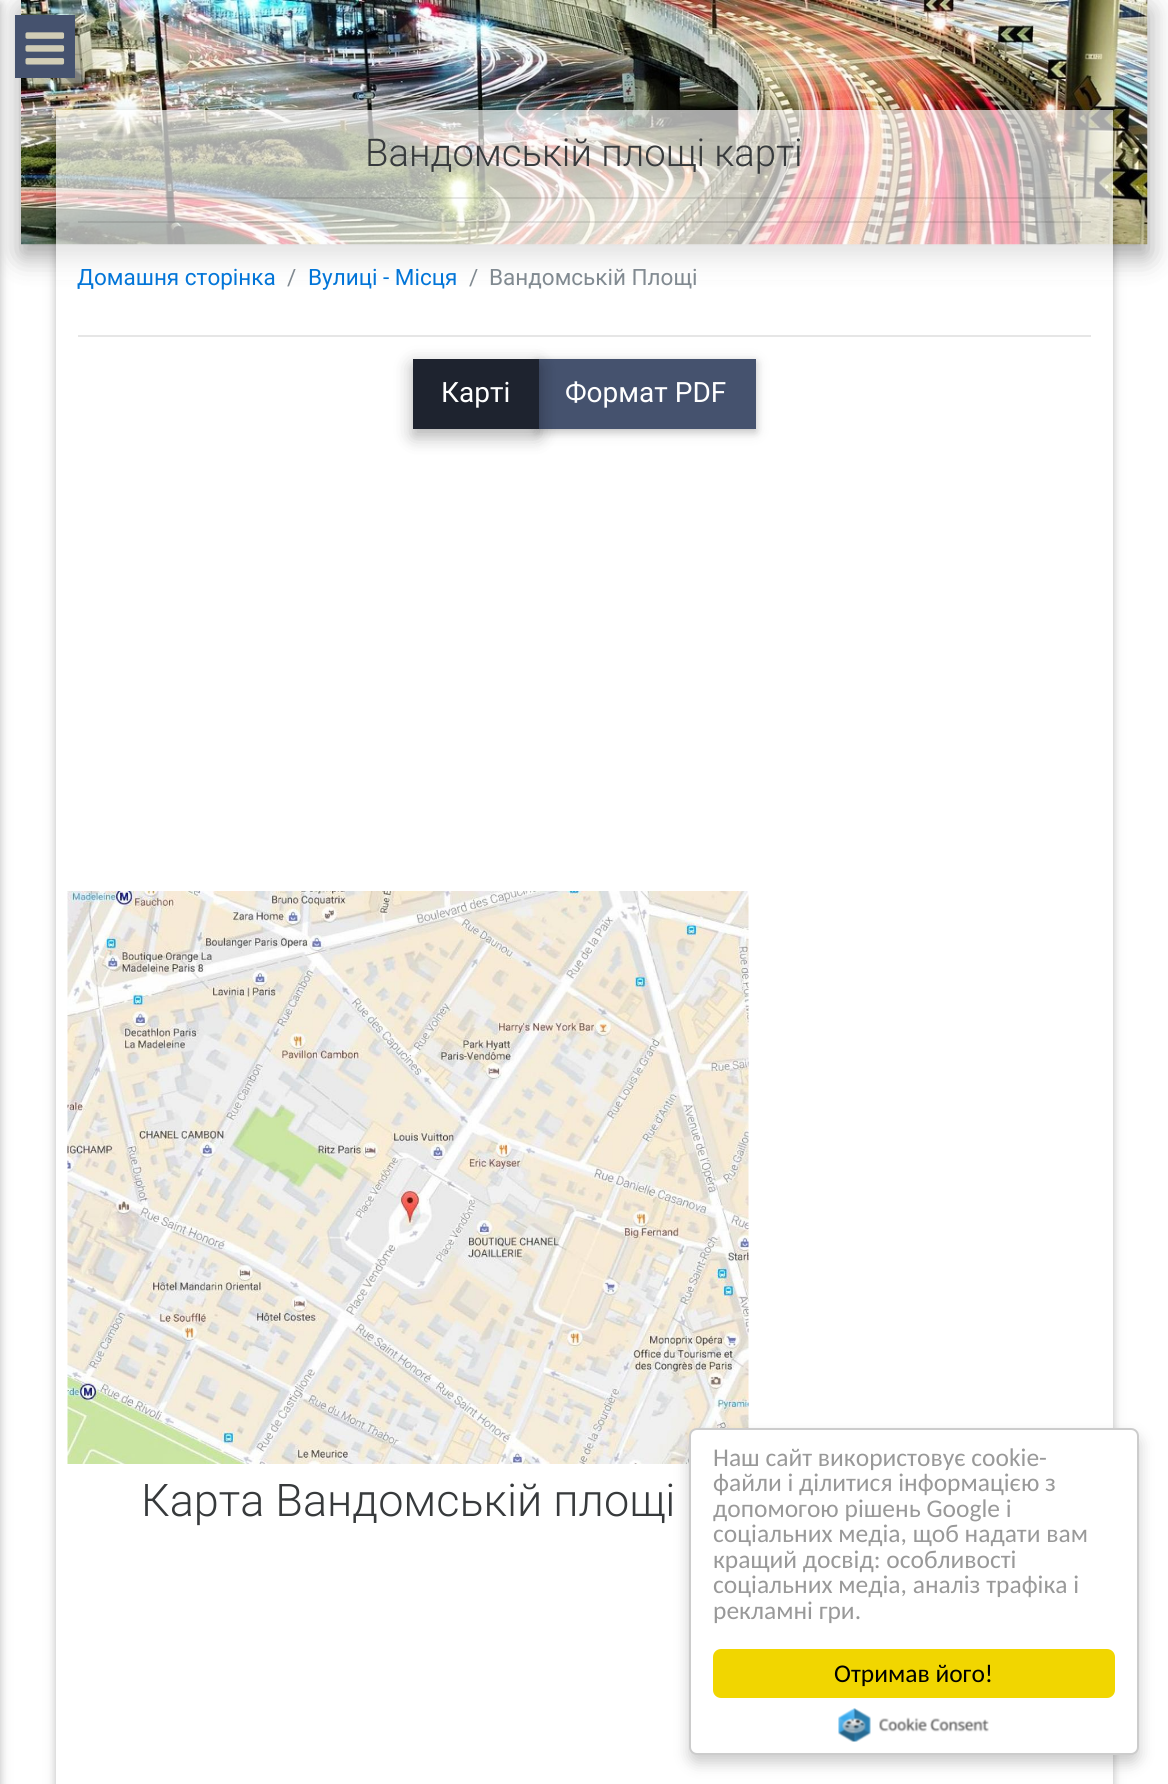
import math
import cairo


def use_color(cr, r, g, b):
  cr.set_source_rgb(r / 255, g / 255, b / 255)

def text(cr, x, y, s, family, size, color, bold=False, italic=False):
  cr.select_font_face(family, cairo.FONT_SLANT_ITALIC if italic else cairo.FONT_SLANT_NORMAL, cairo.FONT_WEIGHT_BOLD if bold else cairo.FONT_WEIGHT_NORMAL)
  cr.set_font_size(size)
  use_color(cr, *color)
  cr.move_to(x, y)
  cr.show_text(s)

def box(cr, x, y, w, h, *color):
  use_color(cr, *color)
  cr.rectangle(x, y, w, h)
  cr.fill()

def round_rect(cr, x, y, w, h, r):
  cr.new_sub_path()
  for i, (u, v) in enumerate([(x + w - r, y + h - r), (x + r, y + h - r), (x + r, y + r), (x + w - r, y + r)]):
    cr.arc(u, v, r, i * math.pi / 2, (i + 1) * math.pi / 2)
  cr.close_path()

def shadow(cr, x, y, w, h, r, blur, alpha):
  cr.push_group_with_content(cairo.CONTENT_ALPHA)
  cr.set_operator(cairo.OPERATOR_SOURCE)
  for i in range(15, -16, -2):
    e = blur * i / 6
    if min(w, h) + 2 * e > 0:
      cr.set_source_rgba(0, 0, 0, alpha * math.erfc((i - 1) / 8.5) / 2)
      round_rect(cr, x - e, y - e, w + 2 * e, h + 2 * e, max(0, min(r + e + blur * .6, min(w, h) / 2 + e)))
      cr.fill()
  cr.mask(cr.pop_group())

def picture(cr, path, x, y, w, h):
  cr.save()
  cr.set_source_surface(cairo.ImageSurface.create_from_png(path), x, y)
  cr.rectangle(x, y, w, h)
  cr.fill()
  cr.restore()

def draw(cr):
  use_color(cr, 255, 255, 255)
  cr.paint()
  use_color(cr, 0, 0, 0)
  shadow(cr, 21, 9, 1127, 245, 0, 15, 0.19)
  shadow(cr, 21, 12, 1127, 245, 0, 13, 0.2)
  picture(cr, "img_02.png", 21, 0, 1127, 245)
  box(cr, 15, 15, 60, 63, 69, 82, 110)
  use_color(cr, 0, 0, 0)
  shadow(cr, -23, 3, 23, 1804, 0, 7.5, 0.12)
  shadow(cr, -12, 3, 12, 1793, 0, 4, 0.16)
  picture(cr, "img_01.png", 25, 32, 40, 33)
  cr.save()
  cr.set_fill_rule(cairo.FILL_RULE_EVEN_ODD)
  cr.new_path()
  cr.move_to(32, 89)
  cr.line_to(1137, 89)
  cr.line_to(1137, 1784)
  cr.line_to(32, 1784)
  cr.close_path()
  cr.move_to(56, 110)
  cr.line_to(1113, 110)
  cr.line_to(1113, 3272)
  cr.line_to(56, 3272)
  cr.close_path()
  cr.clip()
  shadow(cr, 56, 113, 1057, 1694, 0, 7.5, 0.12)
  cr.restore()
  cr.save()
  cr.set_fill_rule(cairo.FILL_RULE_EVEN_ODD)
  cr.new_path()
  cr.move_to(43, 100)
  cr.line_to(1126, 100)
  cr.line_to(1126, 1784)
  cr.line_to(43, 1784)
  cr.close_path()
  cr.move_to(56, 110)
  cr.line_to(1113, 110)
  cr.line_to(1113, 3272)
  cr.line_to(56, 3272)
  cr.close_path()
  cr.clip()
  shadow(cr, 56, 113, 1057, 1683, 0, 4, 0.16)
  cr.restore()
  cr.set_source_rgba(1, 1, 1, 0.65)
  cr.rectangle(56, 110, 1057, 170)
  cr.fill()
  cr.set_source_rgba(0, 0, 0, 0.1)
  cr.rectangle(78, 197, 1013, 2)
  cr.fill()
  cr.rectangle(78, 221, 1013, 2)
  cr.fill()
  box(cr, 78, 335, 1013, 2, 230, 230, 230)
  use_color(cr, 0, 0, 0)
  shadow(cr, 537, 362, 219, 70, 0, 7.5, 0.12)
  shadow(cr, 537, 362, 219, 70, 0, 4, 0.16)
  box(cr, 539, 359, 217, 70, 69, 82, 110)
  use_color(cr, 0, 0, 0)
  shadow(cr, 413, 365, 126, 70, 0, 11, 0.15)
  shadow(cr, 413, 366, 126, 71, 0, 8, 0.18)
  box(cr, 413, 359, 126, 70, 30, 35, 47)
  picture(cr, "img_03.png", 67, 891, 682, 573)
  use_color(cr, 0, 0, 0)
  shadow(cr, 689, 1436, 450, 327, 8, 7.5, 0.2)
  use_color(cr, 255, 255, 255)
  round_rect(cr, 690, 1429, 448, 325, 7)
  cr.fill_preserve()
  use_color(cr, 204, 204, 204)
  cr.stroke()
  use_color(cr, 241, 214, 0)
  round_rect(cr, 713, 1649, 402, 49, 8)
  cr.fill()
  picture(cr, "img_04.png", 838, 1708, 151, 34)
  text(cr, 365, 166, "Вандомській площі карті", "Roboto Light", 38.25, (55, 58, 60))
  text(cr, 77, 285, "Домашня сторінка", "Roboto", 22.5, (2, 117, 216))
  text(cr, 287, 285, "/", "Roboto", 22.5, (129, 138, 145))
  text(cr, 308, 285, "Вулиці - Місця", "Roboto", 22.5, (2, 117, 216))
  text(cr, 469, 285, "/", "Roboto", 22.5, (129, 138, 145))
  text(cr, 489, 285, "Вандомській Площі", "Roboto", 22.5, (129, 138, 145))
  text(cr, 441, 402, "Карті", "Roboto", 28, (255, 255, 255))
  text(cr, 565, 402, "Формат PDF", "Roboto", 28, (255, 255, 255))
  text(cr, 141, 1516, "Карта Вандомській площі", "Roboto Light", 45, (55, 58, 60))
  text(cr, 713, 1466, "Наш сайт використовує cookie-", "Carlito", 25.5, (153, 153, 153))
  text(cr, 713, 1491, "файли і ділитися інформацією з", "Carlito", 25.5, (153, 153, 153))
  text(cr, 713, 1517, "допомогою рішень Google і", "Carlito", 25.5, (153, 153, 153))
  text(cr, 713, 1542, "соціальних медіа, щоб надати вам", "Carlito", 25.5, (153, 153, 153))
  text(cr, 713, 1568, "кращий досвід: особливості", "Carlito", 25.5, (153, 153, 153))
  text(cr, 713, 1593, "соціальних медіа, аналіз трафіка і", "Carlito", 25.5, (153, 153, 153))
  text(cr, 713, 1619, "рекламні гри.", "Carlito", 25.5, (153, 153, 153))
  text(cr, 834, 1682, "Отримав його!", "Carlito", 25.5, (0, 0, 0))


surface = cairo.ImageSurface(cairo.FORMAT_RGB24, 1168, 1784)
cr = cairo.Context(surface)
options = cairo.FontOptions()
options.set_hint_metrics(cairo.HINT_METRICS_OFF)
options.set_hint_style(cairo.HINT_STYLE_NONE)
cr.set_font_options(options)
cr.set_miter_limit(4)
draw(cr)
surface.write_to_png("out.png")
